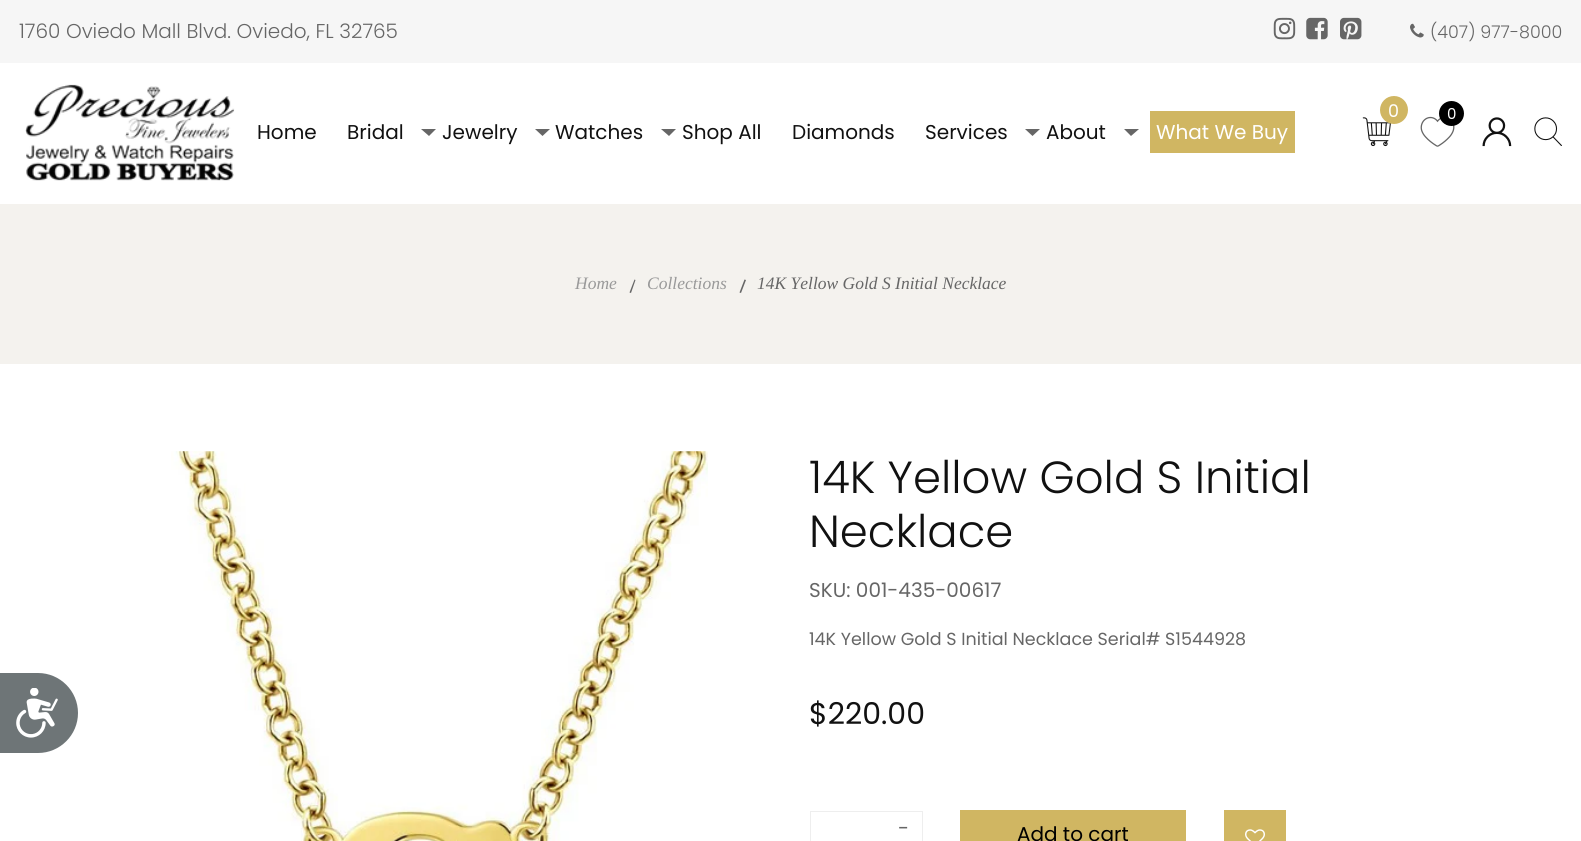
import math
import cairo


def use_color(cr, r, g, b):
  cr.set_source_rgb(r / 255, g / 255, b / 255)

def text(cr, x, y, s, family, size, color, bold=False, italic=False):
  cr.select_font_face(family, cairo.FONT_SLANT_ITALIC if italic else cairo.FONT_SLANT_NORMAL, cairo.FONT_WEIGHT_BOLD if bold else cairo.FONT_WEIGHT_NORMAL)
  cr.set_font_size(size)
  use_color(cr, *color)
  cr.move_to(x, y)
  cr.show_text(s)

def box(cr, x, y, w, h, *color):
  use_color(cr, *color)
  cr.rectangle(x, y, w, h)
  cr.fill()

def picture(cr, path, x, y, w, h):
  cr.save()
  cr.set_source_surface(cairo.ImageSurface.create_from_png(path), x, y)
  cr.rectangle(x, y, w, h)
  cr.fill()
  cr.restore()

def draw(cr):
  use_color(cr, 255, 255, 255)
  cr.paint()
  box(cr, 0, 0, 1581, 63, 246, 246, 246)
  picture(cr, "img_01.png", 1273, 17, 23, 23)
  picture(cr, "img_02.png", 1306, 17, 22, 23)
  picture(cr, "img_03.png", 1340, 17, 22, 23)
  picture(cr, "img_04.png", 1410, 23, 14, 15)
  picture(cr, "img_05.png", 1362, 117, 29, 30)
  use_color(cr, 208, 182, 98)
  cr.arc(1394, 110, 14, 0, 2 * math.pi)
  cr.fill()
  picture(cr, "img_06.png", 1420, 116, 35, 31)
  use_color(cr, 0, 0, 0)
  cr.arc(1451.5, 113.5, 12.5, 0, 2 * math.pi)
  cr.fill()
  picture(cr, "img_07.png", 1482, 117, 30, 30)
  picture(cr, "img_08.png", 1534, 117, 28, 29)
  picture(cr, "img_09.png", 25, 84, 210, 97)
  use_color(cr, 102, 102, 102)
  cr.new_path()
  cr.move_to(421, 129)
  cr.line_to(436, 129)
  cr.line_to(429, 136)
  cr.close_path()
  cr.fill()
  cr.new_path()
  cr.move_to(535, 129)
  cr.line_to(550, 129)
  cr.line_to(542.5, 136)
  cr.close_path()
  cr.fill()
  cr.new_path()
  cr.move_to(661, 129)
  cr.line_to(676, 129)
  cr.line_to(669, 136)
  cr.close_path()
  cr.fill()
  cr.new_path()
  cr.move_to(1025, 129)
  cr.line_to(1040, 129)
  cr.line_to(1032.5, 136)
  cr.close_path()
  cr.fill()
  cr.new_path()
  cr.move_to(1124, 129)
  cr.line_to(1139, 129)
  cr.line_to(1131, 136)
  cr.close_path()
  cr.fill()
  box(cr, 1150, 111, 145, 42, 208, 182, 98)
  box(cr, 0, 204, 1581, 160, 244, 242, 238)
  use_color(cr, 102, 102, 102)
  cr.new_path()
  cr.move_to(629.5, 292.5)
  cr.line_to(634.5, 279.5)
  cr.line_to(635.5, 280)
  cr.line_to(631, 293)
  cr.close_path()
  cr.fill()
  cr.new_path()
  cr.move_to(739.5, 292.5)
  cr.line_to(744.5, 279.5)
  cr.line_to(746, 280)
  cr.line_to(741, 293)
  cr.close_path()
  cr.fill()
  picture(cr, "img_10.png", 171, 451, 537, 390)
  cr.rectangle(810.5, 811.5, 112, 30)
  use_color(cr, 238, 238, 238)
  cr.set_line_width(1)
  cr.stroke()
  box(cr, 960, 810, 226, 31, 208, 182, 98)
  box(cr, 1224, 810, 62, 31, 208, 182, 98)
  picture(cr, "img_11.png", 1245, 829, 20, 12)
  use_color(cr, 110, 117, 119)
  cr.new_path()
  cr.move_to(0, 673)
  cr.line_to(38, 673)
  cr.curve_to(60, 673, 78, 691, 78, 713)
  cr.curve_to(78, 735, 60, 753, 38, 753)
  cr.line_to(0, 753)
  cr.close_path()
  cr.fill()
  picture(cr, "img_12.png", 16, 688, 42, 50)
  text(cr, 19, 38, "1760 Oviedo Mall Blvd. Oviedo, FL 32765", "Poppins Light", 20, (102, 102, 102))
  text(cr, 1430, 38, "(407) 977-8000", "Poppins Light", 17.5, (102, 102, 102))
  text(cr, 1388, 117, "0", "Poppins", 17.5, (255, 255, 255))
  text(cr, 1447, 119, "0", "Poppins", 15, (255, 255, 255))
  text(cr, 257, 139, "Home", "Poppins", 20, (17, 17, 17))
  text(cr, 347, 139, "Bridal", "Poppins", 20, (17, 17, 17))
  text(cr, 442, 139, "Jewelry", "Poppins", 20, (17, 17, 17))
  text(cr, 555, 139, "Watches", "Poppins", 20, (17, 17, 17))
  text(cr, 682, 139, "Shop All", "Poppins", 20, (17, 17, 17))
  text(cr, 792, 139, "Diamonds", "Poppins", 20, (17, 17, 17))
  text(cr, 925, 139, "Services", "Poppins", 20, (17, 17, 17))
  text(cr, 1046, 139, "About", "Poppins", 20, (17, 17, 17))
  text(cr, 1156, 139, "What We Buy", "Poppins", 20, (255, 255, 255))
  text(cr, 575, 289, "Home", "Liberation Serif", 17.5, (153, 153, 153), italic=True)
  text(cr, 647, 289, "Collections", "Liberation Serif", 17.5, (153, 153, 153), italic=True)
  text(cr, 757, 289, "14K Yellow Gold S Initial Necklace", "Liberation Serif", 17.5, (102, 102, 102), italic=True)
  text(cr, 809, 493, "14K Yellow Gold S Initial", "Poppins Light", 45, (17, 17, 17))
  text(cr, 809, 547, "Necklace", "Poppins Light", 45, (17, 17, 17))
  text(cr, 809, 597, "SKU: 001-435-00617", "Poppins", 20, (102, 102, 102))
  text(cr, 809, 645, "14K Yellow Gold S Initial Necklace Serial# S1544928", "Poppins", 17.5, (102, 102, 102))
  text(cr, 809, 724, "$220.00", "Poppins", 30, (17, 17, 17))
  text(cr, 898, 835, "-", "Poppins", 20, (102, 102, 102))
  text(cr, 1017, 841, "Add to cart", "Poppins", 20, (0, 0, 0))


surface = cairo.ImageSurface(cairo.FORMAT_RGB24, 1581, 841)
cr = cairo.Context(surface)
options = cairo.FontOptions()
options.set_hint_metrics(cairo.HINT_METRICS_OFF)
options.set_hint_style(cairo.HINT_STYLE_NONE)
cr.set_font_options(options)
cr.set_miter_limit(4)
draw(cr)
surface.write_to_png("out.png")
